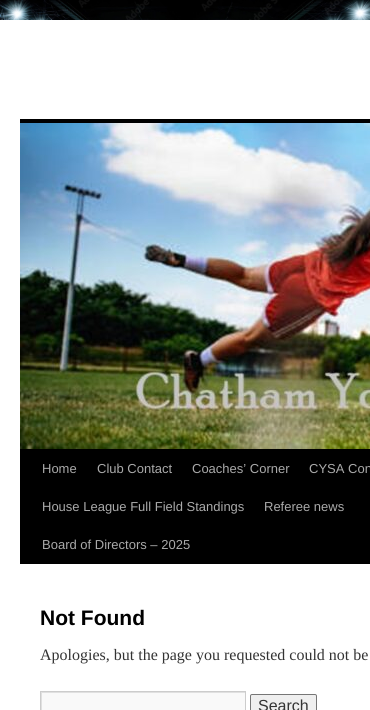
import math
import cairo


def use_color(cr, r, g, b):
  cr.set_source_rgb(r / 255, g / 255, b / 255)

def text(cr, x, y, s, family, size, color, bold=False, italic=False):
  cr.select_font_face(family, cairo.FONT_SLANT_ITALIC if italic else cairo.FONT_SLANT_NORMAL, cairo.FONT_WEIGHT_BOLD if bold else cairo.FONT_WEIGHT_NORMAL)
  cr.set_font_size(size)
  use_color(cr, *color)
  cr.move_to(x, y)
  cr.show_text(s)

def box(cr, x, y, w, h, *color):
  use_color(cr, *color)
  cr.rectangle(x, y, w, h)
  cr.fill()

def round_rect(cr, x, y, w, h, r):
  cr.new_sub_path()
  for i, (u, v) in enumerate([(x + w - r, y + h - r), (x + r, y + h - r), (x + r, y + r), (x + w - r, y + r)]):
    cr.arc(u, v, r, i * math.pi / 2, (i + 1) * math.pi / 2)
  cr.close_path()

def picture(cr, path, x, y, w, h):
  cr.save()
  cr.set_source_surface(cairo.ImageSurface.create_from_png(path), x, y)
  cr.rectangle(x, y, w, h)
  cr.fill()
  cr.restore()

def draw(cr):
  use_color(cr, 255, 255, 255)
  cr.paint()
  picture(cr, "img_01.png", 0, 0, 370, 20)
  box(cr, 20, 119, 350, 4, 0, 0, 0)
  box(cr, 20, 449, 350, 115, 0, 0, 0)
  picture(cr, "img_02.png", 20, 123, 350, 326)
  box(cr, 42, 693, 203, 17, 249, 249, 249)
  cr.save()
  cr.rectangle(41, 692, 204, 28)
  cr.clip()
  use_color(cr, 224, 224, 224)
  cr.set_fill_rule(cairo.FILL_RULE_EVEN_ODD)
  cr.new_path()
  cr.move_to(-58, 593)
  cr.line_to(344, 593)
  cr.line_to(344, 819)
  cr.line_to(-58, 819)
  cr.close_path()
  cr.move_to(42, 693)
  cr.line_to(246, 693)
  cr.line_to(246, 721)
  cr.line_to(42, 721)
  cr.close_path()
  cr.fill()
  cr.restore()
  cr.rectangle(40.5, 691.5, 205, 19)
  use_color(cr, 204, 204, 204)
  cr.set_line_width(1)
  cr.stroke()
  use_color(cr, 239, 239, 239)
  round_rect(cr, 250.5, 694.5, 66, 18, 1.5)
  cr.fill_preserve()
  use_color(cr, 118, 118, 118)
  cr.stroke()
  text(cr, 42, 473, "Home", "Liberation Sans", 13, (170, 170, 170))
  text(cr, 97, 473, "Club Contact", "Liberation Sans", 13, (170, 170, 170))
  text(cr, 192, 473, "Coaches’ Corner", "Liberation Sans", 13, (170, 170, 170))
  text(cr, 309, 473, "CYSA Con", "Liberation Sans", 13, (170, 170, 170))
  text(cr, 42, 511, "House League Full Field Standings", "Liberation Sans", 13, (170, 170, 170))
  text(cr, 264, 511, "Referee news", "Liberation Sans", 13, (170, 170, 170))
  text(cr, 42, 549, "Board of Directors – 2025", "Liberation Sans", 13, (170, 170, 170))
  text(cr, 40, 625, "Not Found", "Liberation Sans", 21, (0, 0, 0), bold=True)
  text(cr, 40, 660, "Apologies, but the page you requested could not be", "Liberation Serif", 16, (51, 51, 51))
  text(cr, 258, 711, "Search", "Liberation Sans", 16, (51, 51, 51))


surface = cairo.ImageSurface(cairo.FORMAT_RGB24, 370, 710)
cr = cairo.Context(surface)
options = cairo.FontOptions()
options.set_hint_metrics(cairo.HINT_METRICS_OFF)
options.set_hint_style(cairo.HINT_STYLE_NONE)
cr.set_font_options(options)
cr.set_miter_limit(4)
draw(cr)
surface.write_to_png("out.png")
